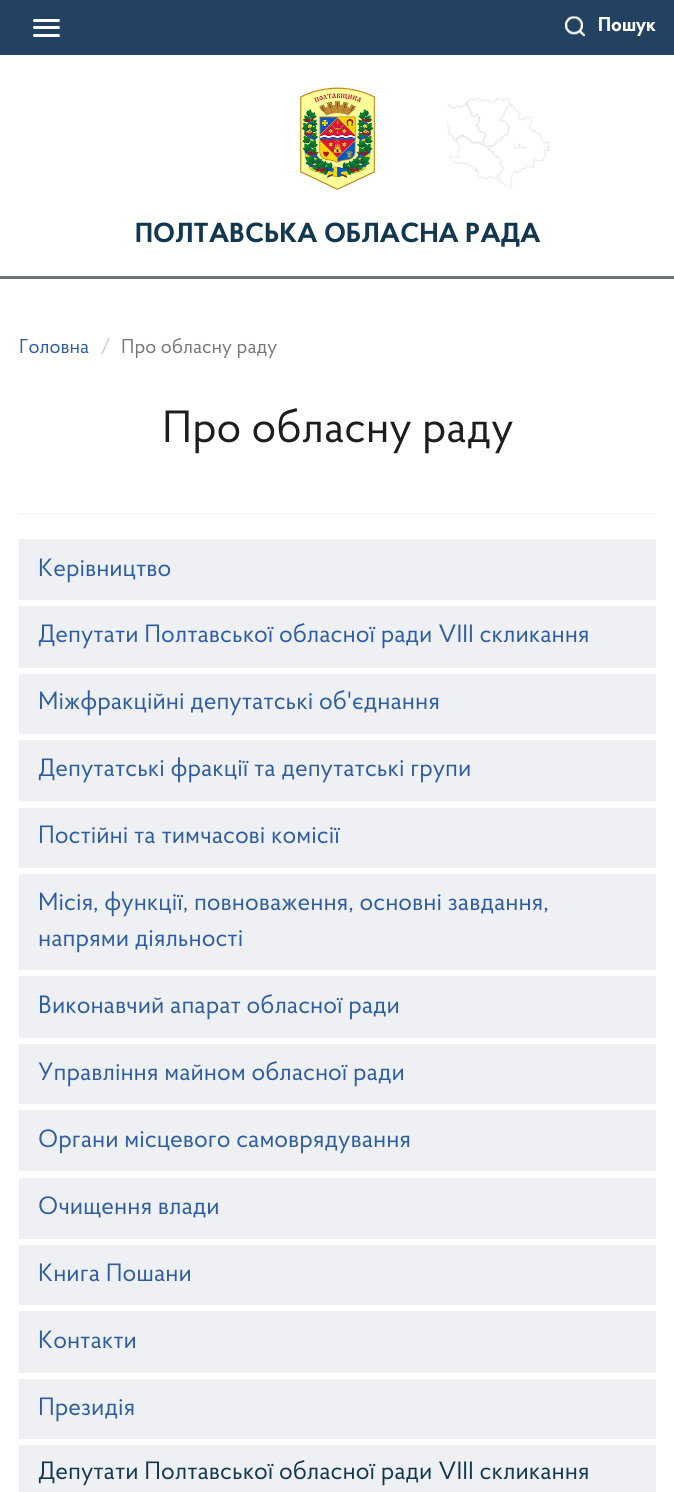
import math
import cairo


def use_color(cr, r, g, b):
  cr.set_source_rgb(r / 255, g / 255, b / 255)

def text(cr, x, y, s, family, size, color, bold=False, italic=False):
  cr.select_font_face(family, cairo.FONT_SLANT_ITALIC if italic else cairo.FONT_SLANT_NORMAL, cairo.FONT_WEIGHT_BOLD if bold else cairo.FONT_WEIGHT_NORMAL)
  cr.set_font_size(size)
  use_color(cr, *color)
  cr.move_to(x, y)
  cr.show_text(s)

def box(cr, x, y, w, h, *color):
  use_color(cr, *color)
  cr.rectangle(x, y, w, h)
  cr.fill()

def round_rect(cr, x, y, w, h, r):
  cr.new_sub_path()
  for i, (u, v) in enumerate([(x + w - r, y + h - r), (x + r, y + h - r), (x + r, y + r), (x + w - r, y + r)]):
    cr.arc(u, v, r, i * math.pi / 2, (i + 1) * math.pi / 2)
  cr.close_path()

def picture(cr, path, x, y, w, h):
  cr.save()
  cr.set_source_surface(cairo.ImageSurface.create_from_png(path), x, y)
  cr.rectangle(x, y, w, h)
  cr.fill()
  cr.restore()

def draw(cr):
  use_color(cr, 255, 255, 255)
  cr.paint()
  box(cr, 0, 276, 674, 3, 109, 114, 124)
  box(cr, 0, 0, 674, 55, 35, 65, 97)
  use_color(cr, 255, 255, 255)
  round_rect(cr, 33, 19, 27, 3, 1.5)
  cr.fill()
  round_rect(cr, 33, 26, 27, 3, 1.5)
  cr.fill()
  round_rect(cr, 33, 34, 27, 3, 1.5)
  cr.fill()
  picture(cr, "img_01.png", 565, 16, 20, 21)
  picture(cr, "img_02.png", 447, 97, 103, 92)
  picture(cr, "img_03.png", 300, 87, 75, 103)
  box(cr, 19, 513, 637, 1, 238, 240, 243)
  box(cr, 19, 539, 637, 61, 238, 240, 243)
  box(cr, 19, 606, 637, 62, 238, 240, 243)
  box(cr, 19, 674, 637, 60, 238, 240, 243)
  box(cr, 19, 740, 637, 61, 238, 240, 243)
  box(cr, 19, 808, 637, 60, 238, 240, 243)
  box(cr, 19, 874, 637, 96, 238, 240, 243)
  box(cr, 19, 976, 637, 62, 238, 240, 243)
  box(cr, 19, 1044, 637, 60, 238, 240, 243)
  box(cr, 19, 1110, 637, 61, 238, 240, 243)
  box(cr, 19, 1178, 637, 61, 238, 240, 243)
  box(cr, 19, 1245, 637, 60, 238, 240, 243)
  box(cr, 19, 1311, 637, 62, 238, 240, 243)
  box(cr, 19, 1379, 637, 60, 238, 240, 243)
  box(cr, 19, 1445, 637, 47, 238, 240, 243)
  text(cr, 598, 31, "Пошук", "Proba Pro", 20, (255, 255, 255), bold=True)
  text(cr, 135, 242, "ПОЛТАВСЬКА ОБЛАСНА РАДА", "Proba Pro", 27.5, (18, 55, 81), bold=True)
  text(cr, 19, 353, "Головна", "Proba Pro", 20, (45, 92, 166))
  text(cr, 100, 353, "/", "Proba Pro", 20, (204, 204, 204))
  text(cr, 121, 353, "Про обласну раду", "Proba Pro", 20, (119, 119, 119))
  text(cr, 162, 442, "Про обласну раду", "Proba Pro", 45, (29, 29, 27))
  text(cr, 38, 576, "Керівництво", "Proba Pro", 25, (45, 92, 166))
  text(cr, 38, 642, "Депутати Полтавської обласної ради VIII скликання", "Proba Pro", 25, (45, 92, 166))
  text(cr, 38, 709, "Міжфракційні депутатські об'єднання", "Proba Pro", 25, (45, 92, 166))
  text(cr, 38, 776, "Депутатські фракції та депутатські групи", "Proba Pro", 25, (45, 92, 166))
  text(cr, 38, 843, "Постійні та тимчасові комісії", "Proba Pro", 25, (45, 92, 166))
  text(cr, 38, 910, "Місія, функції, повноваження, основні завдання,", "Proba Pro", 25, (45, 92, 166))
  text(cr, 38, 946, "напрями діяльності", "Proba Pro", 25, (45, 92, 166))
  text(cr, 38, 1013, "Виконавчий апарат обласної ради", "Proba Pro", 25, (45, 92, 166))
  text(cr, 38, 1080, "Управління майном обласної ради", "Proba Pro", 25, (45, 92, 166))
  text(cr, 38, 1147, "Органи місцевого самоврядування", "Proba Pro", 25, (45, 92, 166))
  text(cr, 38, 1214, "Очищення влади", "Proba Pro", 25, (45, 92, 166))
  text(cr, 38, 1281, "Книга Пошани", "Proba Pro", 25, (45, 92, 166))
  text(cr, 38, 1348, "Контакти", "Proba Pro", 25, (45, 92, 166))
  text(cr, 38, 1415, "Президія", "Proba Pro", 25, (45, 92, 166))
  text(cr, 38, 1479, "Депутати Полтавської обласної ради VIII скликання", "Proba Pro", 25, (18, 55, 81))


surface = cairo.ImageSurface(cairo.FORMAT_RGB24, 674, 1492)
cr = cairo.Context(surface)
options = cairo.FontOptions()
options.set_hint_metrics(cairo.HINT_METRICS_OFF)
options.set_hint_style(cairo.HINT_STYLE_NONE)
cr.set_font_options(options)
cr.set_miter_limit(4)
draw(cr)
surface.write_to_png("out.png")
